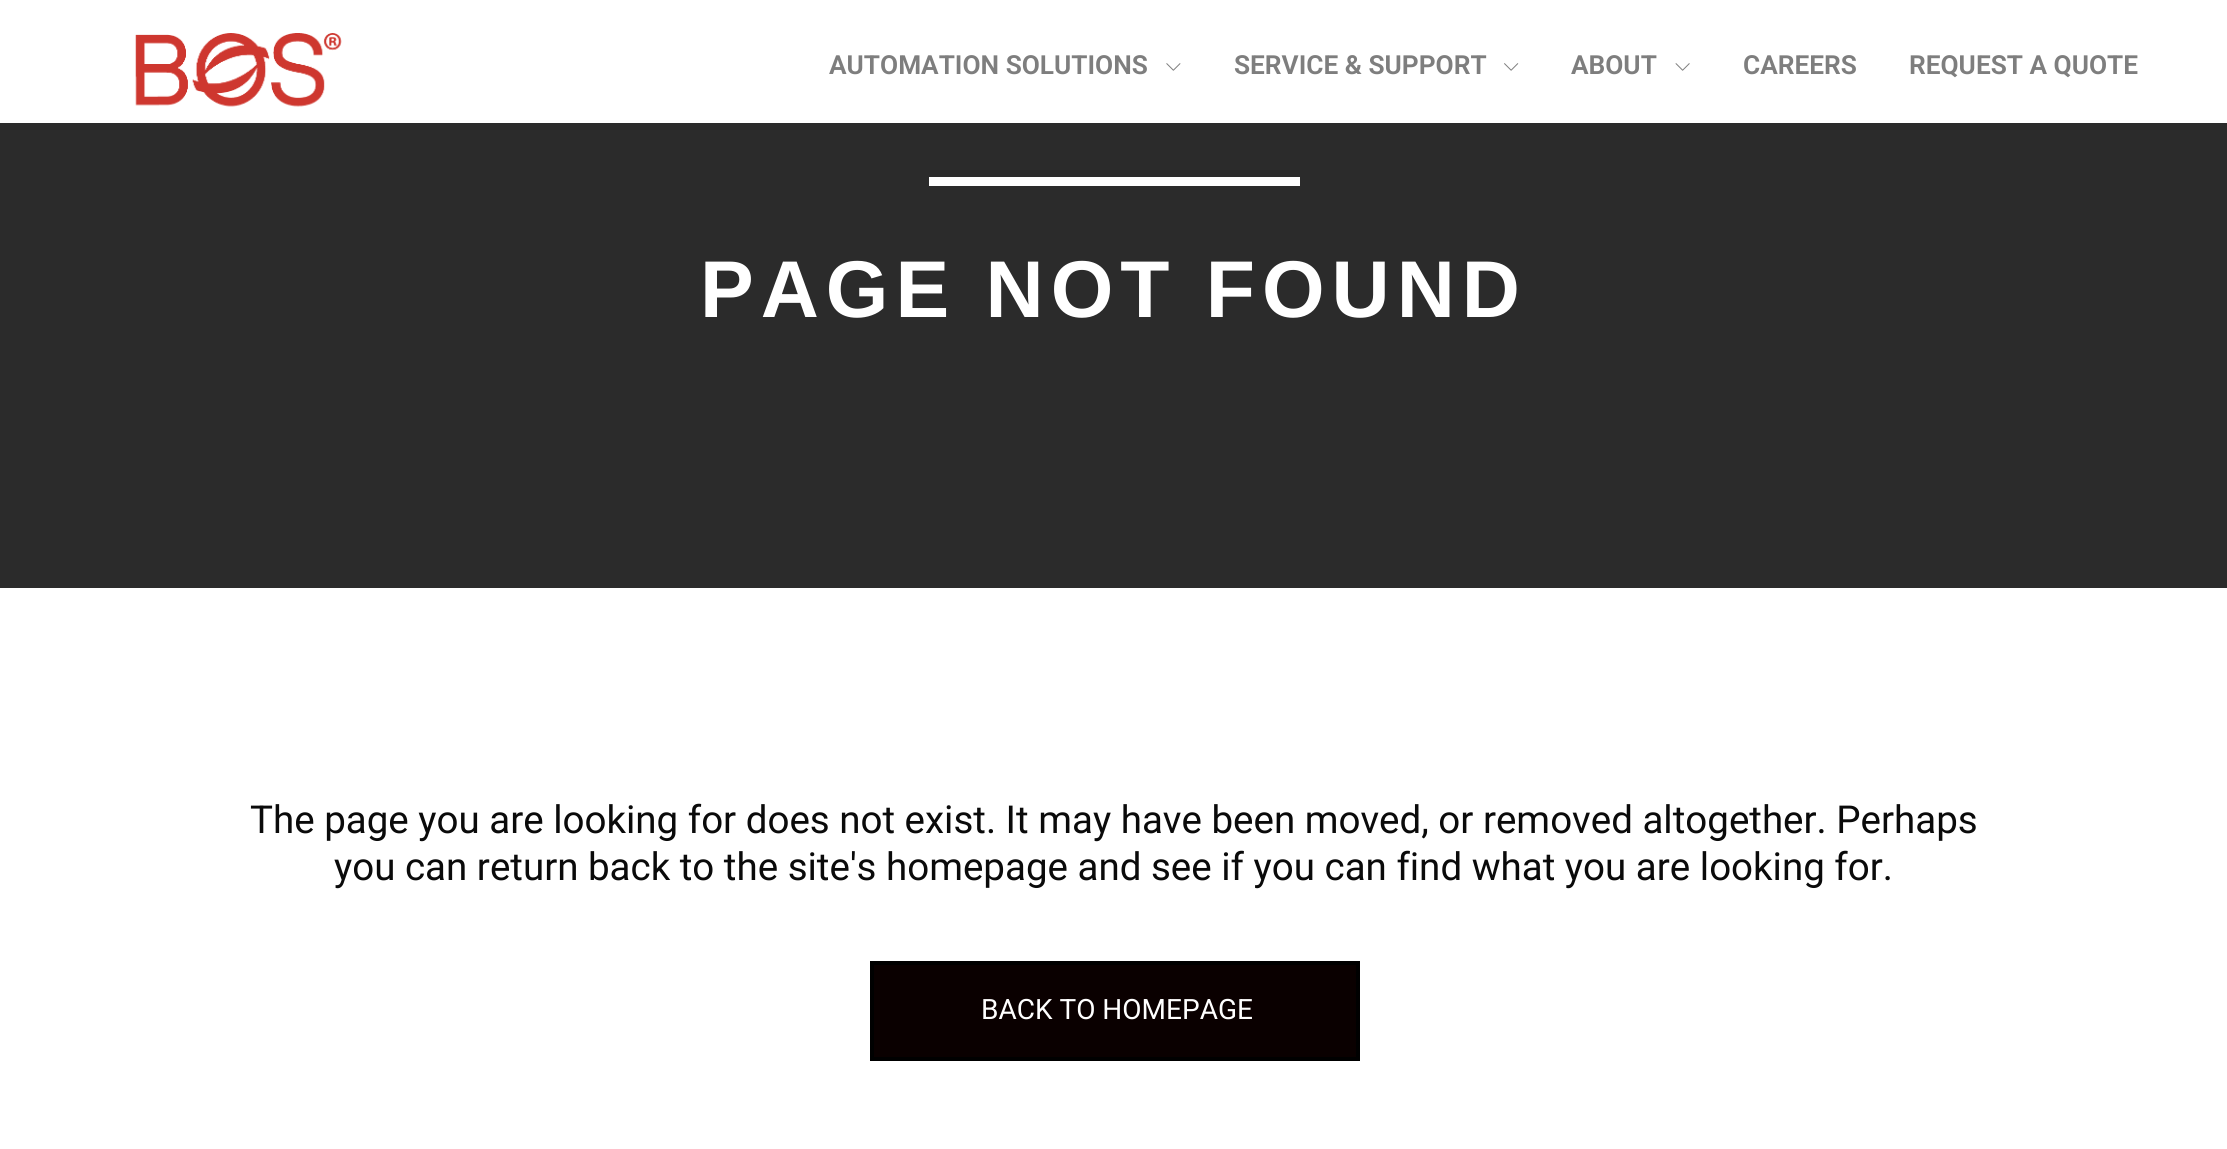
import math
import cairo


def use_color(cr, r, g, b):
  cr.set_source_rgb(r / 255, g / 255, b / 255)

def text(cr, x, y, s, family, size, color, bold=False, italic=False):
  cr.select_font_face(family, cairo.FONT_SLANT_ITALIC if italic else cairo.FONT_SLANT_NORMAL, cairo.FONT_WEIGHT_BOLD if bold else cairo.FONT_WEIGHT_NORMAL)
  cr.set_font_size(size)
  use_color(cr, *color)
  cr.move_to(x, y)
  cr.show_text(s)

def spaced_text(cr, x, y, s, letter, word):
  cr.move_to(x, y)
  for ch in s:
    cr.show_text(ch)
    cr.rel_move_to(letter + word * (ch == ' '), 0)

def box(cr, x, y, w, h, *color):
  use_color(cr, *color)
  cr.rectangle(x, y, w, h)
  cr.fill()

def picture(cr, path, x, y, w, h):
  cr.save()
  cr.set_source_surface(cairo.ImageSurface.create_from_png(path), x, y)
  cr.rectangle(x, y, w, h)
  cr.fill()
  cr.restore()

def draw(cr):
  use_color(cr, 255, 255, 255)
  cr.paint()
  picture(cr, "img_01.png", 135, 33, 207, 74)
  picture(cr, "img_02.png", 1166, 63, 15, 8)
  picture(cr, "img_03.png", 1504, 63, 15, 8)
  picture(cr, "img_04.png", 1675, 63, 15, 8)
  box(cr, 0, 123, 2227, 465, 43, 43, 43)
  box(cr, 929, 177, 371, 9, 255, 255, 255)
  use_color(cr, 10, 0, 0)
  cr.rectangle(872, 963, 486, 96)
  cr.fill_preserve()
  use_color(cr, 0, 0, 0)
  cr.set_line_width(4)
  cr.stroke()
  text(cr, 829, 74, "AUTOMATION SOLUTIONS", "Roboto SemiBold", 26.25, (126, 126, 126))
  text(cr, 1234, 74, "SERVICE & SUPPORT", "Roboto SemiBold", 26.25, (126, 126, 126))
  text(cr, 1571, 74, "ABOUT", "Roboto SemiBold", 26.25, (126, 126, 126))
  text(cr, 1743, 74, "CAREERS", "Roboto SemiBold", 26.25, (126, 126, 126))
  text(cr, 1909, 74, "REQUEST A QUOTE", "Roboto SemiBold", 26.25, (126, 126, 126))
  cr.select_font_face("Liberation Sans", cairo.FONT_SLANT_NORMAL, cairo.FONT_WEIGHT_BOLD)
  cr.set_font_size(80.5)
  use_color(cr, 255, 255, 255)
  spaced_text(cr, 700, 317, "PAGE NOT FOUND", 7, 0)
  text(cr, 250, 833, "The page you are looking for does not exist. It may have been moved, or removed altogether. Perhaps", "Roboto", 38.5, (10, 10, 10))
  text(cr, 334, 880, "you can return back to the site's homepage and see if you can find what you are looking for.", "Roboto", 38.5, (10, 10, 10))
  text(cr, 981, 1019, "BACK TO HOMEPAGE", "Roboto", 28, (255, 255, 255))


surface = cairo.ImageSurface(cairo.FORMAT_RGB24, 2227, 1149)
cr = cairo.Context(surface)
options = cairo.FontOptions()
options.set_hint_metrics(cairo.HINT_METRICS_OFF)
options.set_hint_style(cairo.HINT_STYLE_NONE)
cr.set_font_options(options)
cr.set_miter_limit(4)
draw(cr)
surface.write_to_png("out.png")
